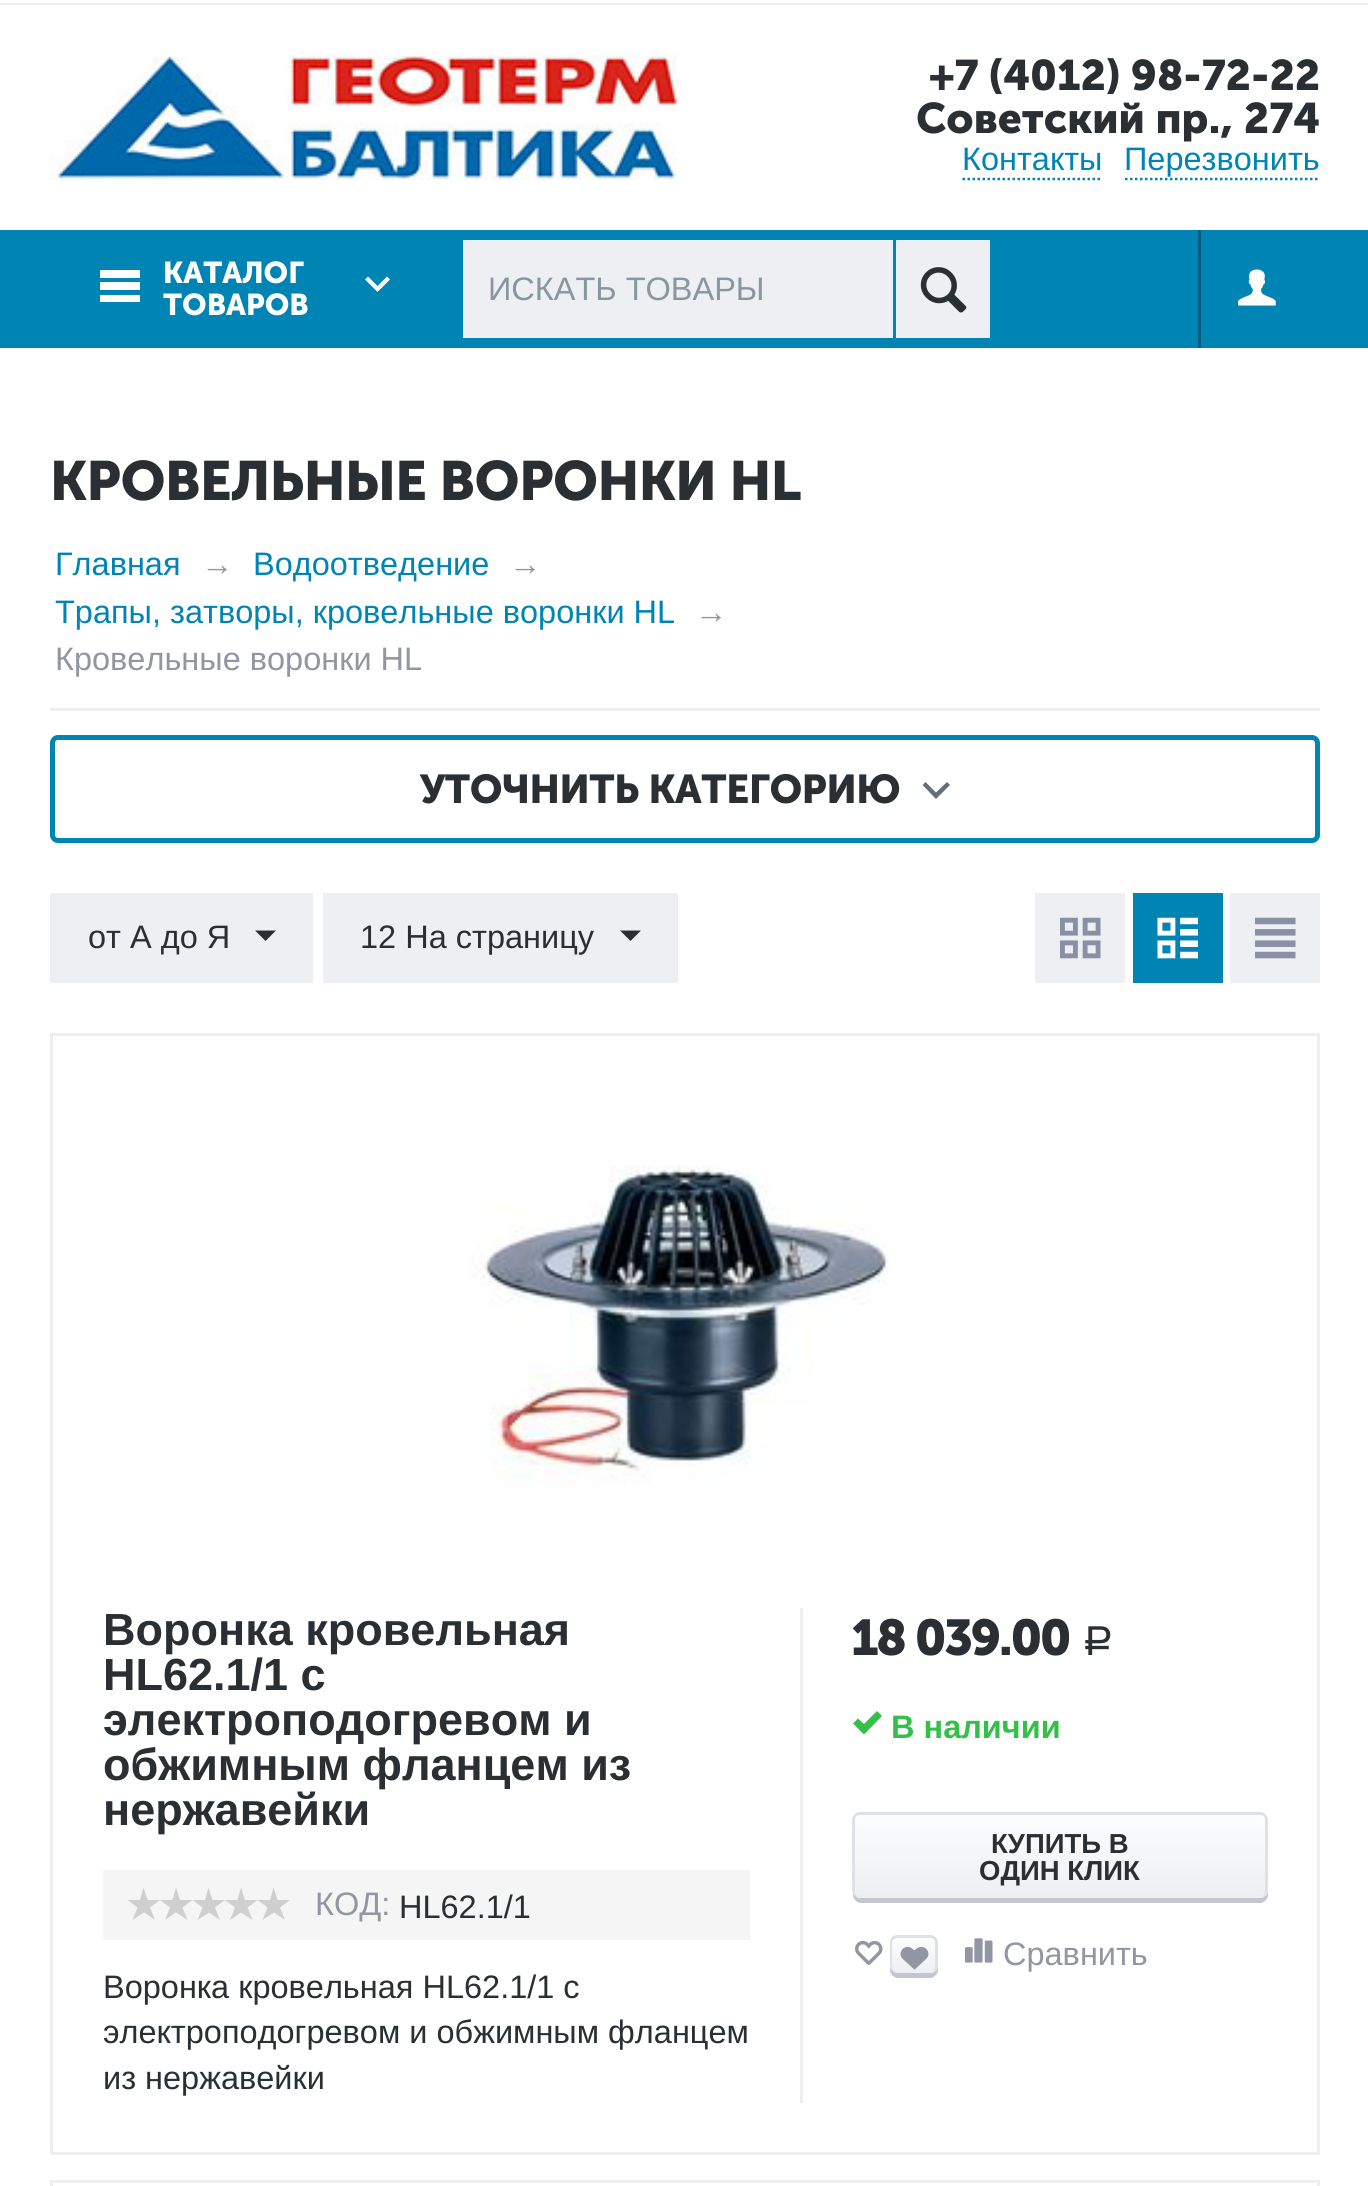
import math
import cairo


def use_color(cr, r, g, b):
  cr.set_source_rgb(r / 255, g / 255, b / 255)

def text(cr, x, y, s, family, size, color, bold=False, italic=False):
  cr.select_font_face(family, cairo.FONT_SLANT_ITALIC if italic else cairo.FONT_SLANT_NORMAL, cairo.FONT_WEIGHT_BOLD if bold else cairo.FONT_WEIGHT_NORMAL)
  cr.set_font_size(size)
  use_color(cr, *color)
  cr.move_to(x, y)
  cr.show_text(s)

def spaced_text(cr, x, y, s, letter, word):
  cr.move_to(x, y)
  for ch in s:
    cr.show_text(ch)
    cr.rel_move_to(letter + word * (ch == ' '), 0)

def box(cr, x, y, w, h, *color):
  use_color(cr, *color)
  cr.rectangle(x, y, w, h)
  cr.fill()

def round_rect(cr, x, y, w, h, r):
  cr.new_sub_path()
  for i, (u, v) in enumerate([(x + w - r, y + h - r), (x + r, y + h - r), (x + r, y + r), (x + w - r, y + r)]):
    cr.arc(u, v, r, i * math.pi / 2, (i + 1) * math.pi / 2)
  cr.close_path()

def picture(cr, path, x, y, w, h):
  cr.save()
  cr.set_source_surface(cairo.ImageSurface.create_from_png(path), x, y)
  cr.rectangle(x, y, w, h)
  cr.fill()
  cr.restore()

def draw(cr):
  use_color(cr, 255, 255, 255)
  cr.paint()
  box(cr, 0, 3, 1368, 2, 238, 239, 242)
  picture(cr, "img_01.png", 50, 55, 628, 125)
  cr.new_path()
  cr.move_to(962.5, 179)
  cr.line_to(1102.5, 179)
  use_color(cr, 0, 132, 180)
  cr.set_line_width(2.5)
  cr.set_dash([2.5, 2.5])
  cr.stroke()
  cr.new_path()
  cr.move_to(1125, 179)
  cr.line_to(1320, 179)
  cr.stroke()
  box(cr, 0, 230, 1368, 118, 0, 132, 180)
  use_color(cr, 255, 255, 255)
  cr.new_path()
  cr.move_to(100, 270)
  cr.line_to(140, 270)
  cr.line_to(140, 278)
  cr.line_to(100, 278)
  cr.close_path()
  cr.move_to(100, 282)
  cr.line_to(140, 282)
  cr.line_to(140, 290)
  cr.line_to(100, 290)
  cr.close_path()
  cr.move_to(100, 295)
  cr.line_to(140, 295)
  cr.line_to(140, 302)
  cr.line_to(100, 302)
  cr.close_path()
  cr.fill()
  cr.new_path()
  cr.move_to(387, 276.5)
  cr.line_to(377.5, 286)
  cr.line_to(368, 276.5)
  cr.line_to(365, 279.5)
  cr.line_to(377.5, 292)
  cr.line_to(390, 279.5)
  cr.close_path()
  cr.fill()
  box(cr, 463, 240, 430, 98, 238, 239, 242)
  box(cr, 896, 240, 94, 98, 238, 239, 242)
  picture(cr, "img_02.png", 920, 267, 47, 46)
  box(cr, 1198, 230, 3, 118, 0, 95, 129)
  picture(cr, "img_03.png", 1238, 269, 38, 37)
  box(cr, 50, 708, 1270, 3, 238, 239, 242)
  round_rect(cr, 52.5, 737.5, 1265, 103, 5.5)
  use_color(cr, 0, 132, 180)
  cr.set_line_width(5)
  cr.set_dash([])
  cr.stroke()
  use_color(cr, 98, 112, 122)
  cr.new_path()
  cr.move_to(947, 782)
  cr.line_to(936, 792.5)
  cr.line_to(925.5, 782)
  cr.line_to(922.5, 785)
  cr.line_to(936, 799)
  cr.line_to(950, 785)
  cr.close_path()
  cr.fill()
  box(cr, 50, 893, 263, 90, 238, 239, 242)
  use_color(cr, 41, 47, 51)
  cr.new_path()
  cr.move_to(265.5, 941)
  cr.line_to(255, 930.5)
  cr.line_to(276, 930.5)
  cr.close_path()
  cr.fill()
  box(cr, 323, 893, 355, 90, 238, 239, 242)
  use_color(cr, 41, 47, 51)
  cr.new_path()
  cr.move_to(630.5, 941)
  cr.line_to(620, 930.5)
  cr.line_to(641, 930.5)
  cr.close_path()
  cr.fill()
  box(cr, 1035, 893, 90, 90, 238, 239, 242)
  picture(cr, "img_04.png", 1060, 917, 41, 42)
  box(cr, 1133, 893, 90, 90, 0, 132, 180)
  picture(cr, "img_05.png", 1157, 917, 41, 42)
  box(cr, 1230, 893, 90, 90, 238, 239, 242)
  picture(cr, "img_06.png", 1255, 917, 41, 42)
  cr.rectangle(51.5, 1034.5, 1267, 1119)
  cr.set_line_width(3)
  cr.stroke()
  picture(cr, "img_07.png", 471, 1165, 418, 320)
  box(cr, 800, 1608, 3, 495, 238, 239, 242)
  box(cr, 103, 1870, 647, 70, 245, 245, 245)
  use_color(cr, 207, 207, 207)
  cr.new_path()
  cr.move_to(143.5, 1887.5)
  cr.line_to(147.5, 1900)
  cr.line_to(160, 1900)
  cr.line_to(150, 1907.5)
  cr.line_to(155, 1920)
  cr.line_to(144, 1912.5)
  cr.line_to(132.5, 1920)
  cr.line_to(137.5, 1907.5)
  cr.line_to(127.5, 1900)
  cr.line_to(140, 1900)
  cr.close_path()
  cr.fill()
  cr.new_path()
  cr.move_to(176, 1887.5)
  cr.line_to(180, 1900)
  cr.line_to(192.5, 1900)
  cr.line_to(182.5, 1907.5)
  cr.line_to(187.5, 1920)
  cr.line_to(176, 1912.5)
  cr.line_to(165, 1920)
  cr.line_to(170, 1907.5)
  cr.line_to(160, 1900)
  cr.line_to(172.5, 1900)
  cr.close_path()
  cr.fill()
  cr.new_path()
  cr.move_to(208.5, 1887.5)
  cr.line_to(212.5, 1900)
  cr.line_to(225, 1900)
  cr.line_to(215, 1907.5)
  cr.line_to(220, 1920)
  cr.line_to(209, 1912.5)
  cr.line_to(197.5, 1920)
  cr.line_to(202.5, 1907.5)
  cr.line_to(192.5, 1900)
  cr.line_to(205, 1900)
  cr.close_path()
  cr.fill()
  cr.new_path()
  cr.move_to(241, 1887.5)
  cr.line_to(245, 1900)
  cr.line_to(257.5, 1900)
  cr.line_to(247.5, 1907.5)
  cr.line_to(252.5, 1920)
  cr.line_to(241, 1912.5)
  cr.line_to(230, 1920)
  cr.line_to(235, 1907.5)
  cr.line_to(225, 1900)
  cr.line_to(237.5, 1900)
  cr.close_path()
  cr.fill()
  cr.new_path()
  cr.move_to(273.5, 1887.5)
  cr.line_to(277.5, 1900)
  cr.line_to(290, 1900)
  cr.line_to(280, 1907.5)
  cr.line_to(285, 1920)
  cr.line_to(274, 1912.5)
  cr.line_to(262.5, 1920)
  cr.line_to(267.5, 1907.5)
  cr.line_to(257.5, 1900)
  cr.line_to(270, 1900)
  cr.close_path()
  cr.fill()
  use_color(cr, 52, 191, 73)
  cr.new_path()
  cr.move_to(864, 1734.5)
  cr.line_to(853, 1723.5)
  cr.line_to(858, 1718.5)
  cr.line_to(864, 1724)
  cr.line_to(877, 1711)
  cr.line_to(882, 1716)
  cr.close_path()
  cr.fill()
  use_color(cr, 195, 198, 209)
  cr.new_path()
  cr.move_to(853, 1893)
  cr.line_to(853, 1895)
  cr.curve_to(853, 1899, 857, 1903, 861, 1903)
  cr.line_to(1260, 1903)
  cr.curve_to(1264, 1903, 1268, 1899, 1268, 1895)
  cr.line_to(1268, 1826)
  cr.line_to(1268, 1823)
  cr.line_to(1268, 1890)
  cr.curve_to(1268, 1894, 1264, 1898, 1260, 1898)
  cr.line_to(860, 1898)
  cr.curve_to(857, 1898, 854, 1896, 853, 1893)
  cr.close_path()
  cr.fill()
  use_color(cr, 238, 239, 242)
  round_rect(cr, 853, 1813, 415, 85, 8)
  cr.fill()
  cr.save()
  round_rect(cr, 853, 1813, 415, 85, 8)
  cr.clip()
  gradient = cairo.LinearGradient(1060, 1815, 1060, 1898)
  gradient.add_color_stop_rgba(0, 0.988, 0.992, 0.992, 1)
  gradient.add_color_stop_rgba(1, 0.933, 0.937, 0.949, 1)
  cr.set_source(gradient)
  cr.new_path()
  cr.move_to(853, 1815)
  cr.line_to(1268, 1815)
  cr.line_to(1268, 1890)
  cr.curve_to(1268, 1894.5, 1264.5, 1898, 1260, 1898)
  cr.line_to(861, 1898)
  cr.curve_to(856.5, 1898, 853, 1894.5, 853, 1890)
  cr.close_path()
  cr.fill()
  cr.restore()
  use_color(cr, 224, 225, 231)
  cr.set_fill_rule(cairo.FILL_RULE_EVEN_ODD)
  cr.new_path()
  cr.move_to(860, 1812)
  cr.line_to(1260, 1812)
  cr.curve_to(1264, 1812, 1268, 1816, 1268, 1820)
  cr.line_to(1268, 1890)
  cr.curve_to(1268, 1894, 1264, 1898, 1260, 1898)
  cr.line_to(860, 1898)
  cr.curve_to(856, 1898, 852, 1894, 852, 1890)
  cr.line_to(852, 1820)
  cr.curve_to(852, 1816, 856, 1812, 860, 1812)
  cr.close_path()
  cr.move_to(860, 1815)
  cr.line_to(1260, 1815)
  cr.curve_to(1263, 1815, 1265, 1817, 1265, 1820)
  cr.line_to(1265, 1890)
  cr.curve_to(1265, 1894, 1263, 1898, 1260, 1898)
  cr.line_to(860, 1898)
  cr.curve_to(857, 1898, 855, 1894, 855, 1890)
  cr.line_to(855, 1820)
  cr.curve_to(855, 1817, 857, 1815, 860, 1815)
  cr.close_path()
  cr.fill()
  use_color(cr, 195, 198, 209)
  cr.set_fill_rule(cairo.FILL_RULE_WINDING)
  cr.new_path()
  cr.move_to(890, 1965)
  cr.line_to(890, 1970)
  cr.curve_to(890, 1974, 894, 1978, 898, 1978)
  cr.line_to(930, 1978)
  cr.curve_to(934, 1978, 938, 1974, 938, 1970)
  cr.line_to(938, 1948)
  cr.line_to(938, 1945)
  cr.line_to(938, 1965)
  cr.curve_to(938, 1969, 934, 1972, 930, 1972)
  cr.line_to(898, 1972)
  cr.curve_to(893, 1972, 890, 1969, 890, 1965)
  cr.close_path()
  cr.fill()
  use_color(cr, 238, 239, 242)
  round_rect(cr, 890, 1935, 48, 38, 8)
  cr.fill()
  cr.save()
  round_rect(cr, 890, 1935, 48, 38, 8)
  cr.clip()
  gradient = cairo.LinearGradient(914, 1938, 914, 1973)
  gradient.add_color_stop_rgba(0, 0.988, 0.992, 0.992, 1)
  gradient.add_color_stop_rgba(1, 0.933, 0.937, 0.949, 1)
  cr.set_source(gradient)
  cr.new_path()
  cr.move_to(890, 1938)
  cr.line_to(938, 1938)
  cr.line_to(938, 1965)
  cr.curve_to(938, 1969.5, 934.5, 1973, 930, 1973)
  cr.line_to(898, 1973)
  cr.curve_to(893.5, 1973, 890, 1969.5, 890, 1965)
  cr.close_path()
  cr.fill()
  cr.restore()
  use_color(cr, 224, 225, 231)
  cr.set_fill_rule(cairo.FILL_RULE_EVEN_ODD)
  cr.new_path()
  cr.move_to(898, 1935)
  cr.line_to(930, 1935)
  cr.curve_to(934, 1935, 938, 1938, 938, 1942)
  cr.line_to(938, 1965)
  cr.curve_to(938, 1969, 934, 1972, 930, 1972)
  cr.line_to(898, 1972)
  cr.curve_to(893, 1972, 890, 1969, 890, 1965)
  cr.line_to(890, 1942)
  cr.curve_to(890, 1938, 893, 1935, 898, 1935)
  cr.close_path()
  cr.move_to(898, 1938)
  cr.line_to(930, 1938)
  cr.curve_to(933, 1938, 935, 1940, 935, 1942)
  cr.line_to(935, 1965)
  cr.curve_to(935, 1969, 933, 1972, 930, 1972)
  cr.line_to(898, 1972)
  cr.curve_to(895, 1972, 892, 1969, 892, 1965)
  cr.line_to(892, 1942)
  cr.curve_to(892, 1940, 895, 1938, 898, 1938)
  cr.close_path()
  cr.fill()
  picture(cr, "img_08.png", 855, 1940, 28, 25)
  picture(cr, "img_09.png", 900, 1947, 29, 23)
  picture(cr, "img_10.png", 965, 1938, 28, 25)
  cr.rectangle(51.5, 2181.5, 1267, 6)
  use_color(cr, 238, 239, 242)
  cr.stroke()
  text(cr, 929, 90, "+7 (4012) 98-72-22", "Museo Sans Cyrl", 42.5, (41, 47, 51), bold=True)
  text(cr, 916, 133, "Советский пр., 274", "Museo Sans Cyrl", 42.5, (41, 47, 51), bold=True)
  text(cr, 962, 170, "Контакты", "Liberation Sans", 32.5, (0, 132, 180))
  text(cr, 1124, 170, "Перезвонить", "Liberation Sans", 32.5, (0, 132, 180))
  text(cr, 163, 283, "КАТАЛОГ", "Museo Sans Cyrl", 30, (255, 255, 255), bold=True)
  text(cr, 163, 315, "ТОВАРОВ", "Museo Sans Cyrl", 30, (255, 255, 255), bold=True)
  text(cr, 488, 300, "ИСКАТЬ ТОВАРЫ", "Liberation Sans", 32.5, (136, 150, 160))
  cr.select_font_face("Museo Sans Cyrl", cairo.FONT_SLANT_NORMAL, cairo.FONT_WEIGHT_BOLD)
  cr.set_font_size(55)
  use_color(cr, 41, 47, 51)
  spaced_text(cr, 50, 500, "КРОВЕЛЬНЫЕ ВОРОНКИ HL", -0.55, 0)
  text(cr, 55, 575, "Главная", "Liberation Sans", 32.5, (0, 132, 180))
  text(cr, 201, 575, "→", "Liberation Sans", 32.5, (146, 150, 162))
  text(cr, 253, 575, "Водоотведение", "Liberation Sans", 32.5, (0, 132, 180))
  text(cr, 509, 575, "→", "Liberation Sans", 32.5, (146, 150, 162))
  text(cr, 55, 623, "Трапы, затворы, кровельные воронки HL", "Liberation Sans", 32.5, (0, 132, 180))
  text(cr, 695, 623, "→", "Liberation Sans", 32.5, (146, 150, 162))
  text(cr, 55, 670, "Кровельные воронки HL", "Liberation Sans", 32.5, (146, 150, 162))
  cr.select_font_face("Museo Sans Cyrl", cairo.FONT_SLANT_NORMAL, cairo.FONT_WEIGHT_BOLD)
  cr.set_font_size(40)
  use_color(cr, 41, 47, 51)
  spaced_text(cr, 420, 803, "УТОЧНИТЬ КАТЕГОРИЮ", -0.4, 0)
  text(cr, 88, 948, "от А до Я", "Liberation Sans", 32.5, (41, 47, 51))
  text(cr, 360, 948, "12 На страницу", "Liberation Sans", 32.5, (41, 47, 51))
  text(cr, 103, 1645, "Воронка кровельная", "Liberation Sans", 45, (41, 47, 51), bold=True)
  text(cr, 103, 1690, "HL62.1/1 с", "Liberation Sans", 45, (41, 47, 51), bold=True)
  text(cr, 103, 1735, "электроподогревом и", "Liberation Sans", 45, (41, 47, 51), bold=True)
  text(cr, 103, 1780, "обжимным фланцем из", "Liberation Sans", 45, (41, 47, 51), bold=True)
  text(cr, 103, 1825, "нержавейки", "Liberation Sans", 45, (41, 47, 51), bold=True)
  text(cr, 315, 1915, "КОД:", "Liberation Sans", 32.5, (146, 150, 162))
  text(cr, 399, 1918, "HL62.1/1", "Liberation Sans", 32.5, (41, 47, 51))
  text(cr, 103, 1998, "Воронка кровельная HL62.1/1 с", "Liberation Sans", 32.5, (41, 47, 51))
  text(cr, 103, 2043, "электроподогревом и обжимным фланцем", "Liberation Sans", 32.5, (41, 47, 51))
  text(cr, 103, 2089, "из нержавейки", "Liberation Sans", 32.5, (41, 47, 51))
  cr.select_font_face("Museo Sans Cyrl", cairo.FONT_SLANT_NORMAL, cairo.FONT_WEIGHT_BOLD)
  cr.set_font_size(50)
  spaced_text(cr, 851, 1655, "18 039.00", -2.5, 0)
  cr.select_font_face("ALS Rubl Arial")
  cr.set_font_size(41)
  spaced_text(cr, 1082, 1655, "Р", -2.5, 0)
  text(cr, 891, 1738, "В наличии", "Liberation Sans", 32.5, (52, 191, 73), bold=True)
  text(cr, 991, 1853, "КУПИТЬ В", "Liberation Sans", 27.5, (41, 47, 51), bold=True)
  text(cr, 979, 1880, "ОДИН КЛИК", "Liberation Sans", 27.5, (41, 47, 51), bold=True)
  text(cr, 1003, 1965, "Сравнить", "Liberation Sans", 32.5, (146, 150, 162))


surface = cairo.ImageSurface(cairo.FORMAT_RGB24, 1368, 2186)
cr = cairo.Context(surface)
options = cairo.FontOptions()
options.set_hint_metrics(cairo.HINT_METRICS_OFF)
options.set_hint_style(cairo.HINT_STYLE_NONE)
cr.set_font_options(options)
cr.set_miter_limit(4)
draw(cr)
surface.write_to_png("out.png")
